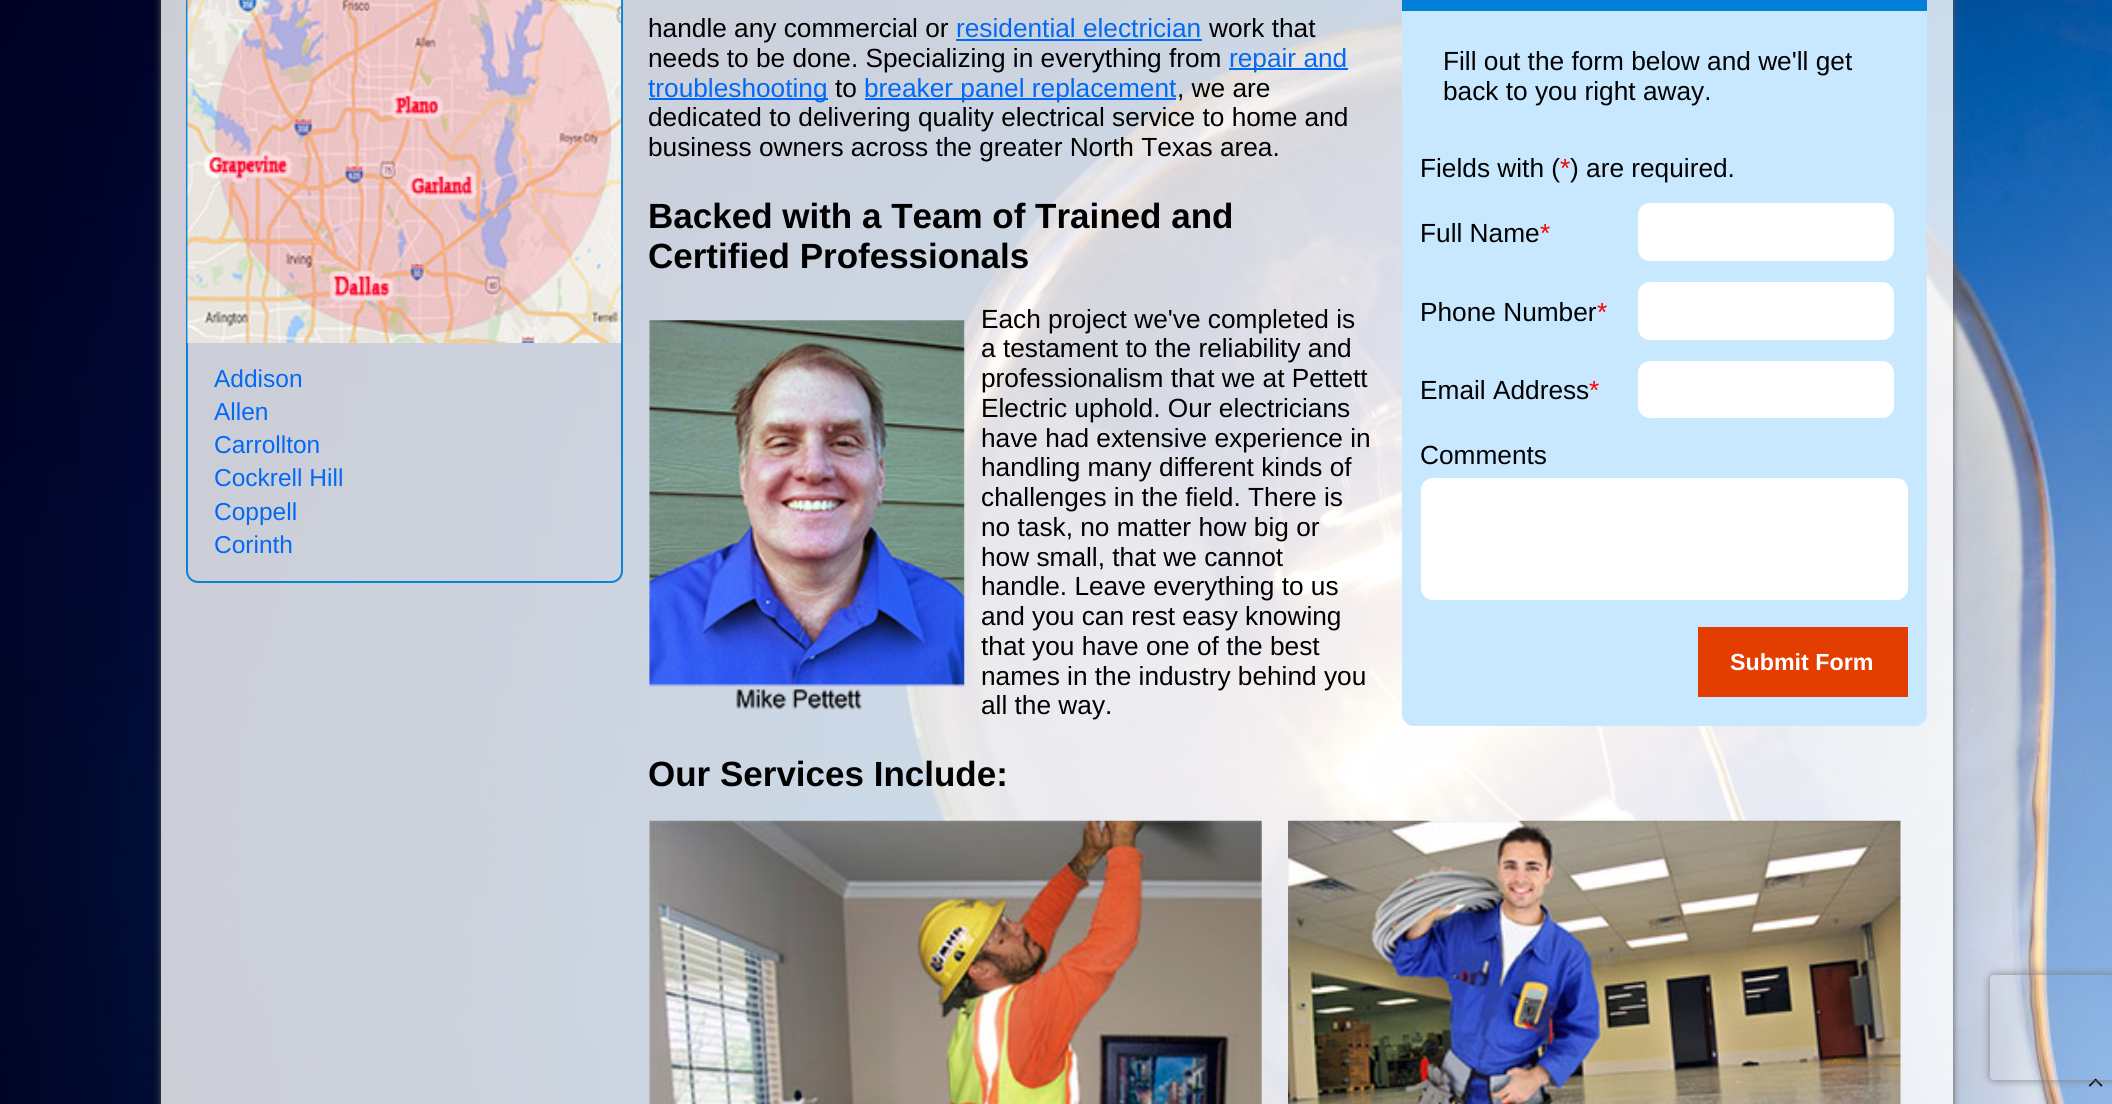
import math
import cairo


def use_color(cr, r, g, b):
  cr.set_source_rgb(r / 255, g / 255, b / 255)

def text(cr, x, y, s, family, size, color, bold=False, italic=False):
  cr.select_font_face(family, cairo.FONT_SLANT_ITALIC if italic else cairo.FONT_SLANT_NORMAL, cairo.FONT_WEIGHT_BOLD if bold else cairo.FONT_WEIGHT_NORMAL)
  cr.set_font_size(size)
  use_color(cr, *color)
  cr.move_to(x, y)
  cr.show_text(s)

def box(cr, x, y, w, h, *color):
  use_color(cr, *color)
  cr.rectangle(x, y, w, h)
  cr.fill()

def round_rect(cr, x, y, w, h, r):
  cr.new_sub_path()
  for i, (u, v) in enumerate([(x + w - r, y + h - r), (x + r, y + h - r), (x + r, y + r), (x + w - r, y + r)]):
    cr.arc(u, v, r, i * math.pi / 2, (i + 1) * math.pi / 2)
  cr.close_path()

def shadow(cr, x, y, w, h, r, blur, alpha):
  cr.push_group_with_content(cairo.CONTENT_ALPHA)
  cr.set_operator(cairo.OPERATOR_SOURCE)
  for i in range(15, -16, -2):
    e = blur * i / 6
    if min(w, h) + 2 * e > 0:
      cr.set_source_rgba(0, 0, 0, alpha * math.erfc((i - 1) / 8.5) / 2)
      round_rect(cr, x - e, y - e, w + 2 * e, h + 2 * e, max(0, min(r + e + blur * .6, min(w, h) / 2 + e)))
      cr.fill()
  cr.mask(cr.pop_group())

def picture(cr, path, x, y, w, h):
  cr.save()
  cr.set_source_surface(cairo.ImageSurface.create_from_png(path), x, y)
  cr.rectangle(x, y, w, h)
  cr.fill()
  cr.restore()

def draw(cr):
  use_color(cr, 255, 255, 255)
  cr.paint()
  picture(cr, "img_01.png", 0, 0, 2112, 1104)
  cr.save()
  cr.set_fill_rule(cairo.FILL_RULE_EVEN_ODD)
  cr.new_path()
  cr.move_to(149, 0)
  cr.line_to(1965, 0)
  cr.line_to(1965, 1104)
  cr.line_to(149, 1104)
  cr.close_path()
  cr.move_to(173, -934)
  cr.line_to(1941, -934)
  cr.curve_to(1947.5, -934, 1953, -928.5, 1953, -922)
  cr.line_to(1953, 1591)
  cr.line_to(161, 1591)
  cr.line_to(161, -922)
  cr.curve_to(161, -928.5, 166.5, -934, 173, -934)
  cr.close_path()
  cr.clip()
  use_color(cr, 85, 85, 85)
  shadow(cr, 161, -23, 1792, 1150, 12, 3.5, 1)
  cr.restore()
  cr.set_source_rgba(1, 1, 1, 0.8)
  cr.rectangle(161, 0, 1792, 1104)
  cr.fill()
  round_rect(cr, 187, -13, 435, 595, 11)
  use_color(cr, 9, 130, 213)
  cr.stroke()
  picture(cr, "img_02.png", 187, 0, 435, 343)
  box(cr, 956, 39, 246, 2, 2, 105, 244)
  box(cr, 1229, 68, 119, 2, 2, 105, 244)
  box(cr, 649, 98, 179, 2, 2, 105, 244)
  box(cr, 865, 98, 311, 2, 2, 105, 244)
  use_color(cr, 200, 232, 255)
  round_rect(cr, 1402, -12, 525, 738, 12)
  cr.fill()
  box(cr, 1402, 0, 525, 11, 0, 128, 217)
  use_color(cr, 255, 255, 255)
  round_rect(cr, 1638, 203, 256, 58, 12)
  cr.fill()
  round_rect(cr, 1638, 282, 256, 58, 12)
  cr.fill()
  round_rect(cr, 1638, 361, 256, 57, 12)
  cr.fill()
  round_rect(cr, 1421, 478, 487, 122, 12)
  cr.fill()
  box(cr, 1698, 627, 210, 70, 227, 61, 0)
  picture(cr, "img_03.png", 649, 320, 316, 390)
  picture(cr, "img_04.png", 649, 820, 613, 284)
  picture(cr, "img_05.png", 1288, 820, 613, 284)
  picture(cr, "img_06.png", 2088, 1078, 15, 9)
  cr.save()
  cr.set_fill_rule(cairo.FILL_RULE_EVEN_ODD)
  cr.new_path()
  cr.move_to(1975, 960)
  cr.line_to(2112, 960)
  cr.line_to(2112, 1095)
  cr.line_to(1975, 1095)
  cr.close_path()
  cr.move_to(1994, 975)
  cr.line_to(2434, 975)
  cr.curve_to(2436, 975, 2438, 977, 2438, 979)
  cr.line_to(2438, 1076)
  cr.curve_to(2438, 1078, 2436, 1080, 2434, 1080)
  cr.line_to(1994, 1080)
  cr.curve_to(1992, 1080, 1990, 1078, 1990, 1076)
  cr.line_to(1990, 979)
  cr.curve_to(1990, 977, 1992, 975, 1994, 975)
  cr.close_path()
  cr.clip()
  use_color(cr, 128, 128, 128)
  shadow(cr, 1990, 975, 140, 105, 4, 4.5, 1)
  cr.restore()
  text(cr, 214, 387, "Addison", "Liberation Sans", 24.5, (2, 105, 244))
  text(cr, 214, 420, "Allen", "Liberation Sans", 24.5, (2, 105, 244))
  text(cr, 214, 453, "Carrollton", "Liberation Sans", 24.5, (2, 105, 244))
  text(cr, 214, 486, "Cockrell Hill", "Liberation Sans", 24.5, (2, 105, 244))
  text(cr, 214, 520, "Coppell", "Liberation Sans", 24.5, (2, 105, 244))
  text(cr, 214, 553, "Corinth", "Liberation Sans", 24.5, (2, 105, 244))
  text(cr, 648, 37, "handle any commercial or", "Liberation Sans", 26.25, (0, 0, 0))
  text(cr, 956, 37, "residential electrician", "Liberation Sans", 26.25, (2, 105, 244))
  text(cr, 1209, 37, "work that", "Liberation Sans", 26.25, (0, 0, 0))
  text(cr, 648, 67, "needs to be done. Specializing in everything from", "Liberation Sans", 26.25, (0, 0, 0))
  text(cr, 1229, 67, "repair and", "Liberation Sans", 26.25, (2, 105, 244))
  text(cr, 648, 97, "troubleshooting", "Liberation Sans", 26.25, (2, 105, 244))
  text(cr, 835, 97, "to", "Liberation Sans", 26.25, (0, 0, 0))
  text(cr, 864, 97, "breaker panel replacement", "Liberation Sans", 26.25, (2, 105, 244))
  text(cr, 1177, 97, ", we are", "Liberation Sans", 26.25, (0, 0, 0))
  text(cr, 648, 126, "dedicated to delivering quality electrical service to home and", "Liberation Sans", 26.25, (0, 0, 0))
  text(cr, 648, 156, "business owners across the greater North Texas area.", "Liberation Sans", 26.25, (0, 0, 0))
  text(cr, 1443, 70, "Fill out the form below and we'll get", "Liberation Sans", 26.25, (0, 0, 0))
  text(cr, 1443, 100, "back to you right away.", "Liberation Sans", 26.25, (0, 0, 0))
  text(cr, 1420, 177, "Fields with (", "Liberation Sans", 26.25, (0, 0, 0))
  text(cr, 1560, 177, "*", "Liberation Sans", 26.25, (255, 0, 0))
  text(cr, 1570, 177, ") are required.", "Liberation Sans", 26.25, (0, 0, 0))
  text(cr, 1420, 242, "Full Name", "Liberation Sans", 26.25, (0, 0, 0))
  text(cr, 1540, 242, "*", "Liberation Sans", 26.25, (255, 0, 0))
  text(cr, 1420, 321, "Phone Number", "Liberation Sans", 26.25, (0, 0, 0))
  text(cr, 1597, 321, "*", "Liberation Sans", 26.25, (255, 0, 0))
  text(cr, 1420, 399, "Email Address", "Liberation Sans", 26.25, (0, 0, 0))
  text(cr, 1589, 399, "*", "Liberation Sans", 26.25, (255, 0, 0))
  text(cr, 1420, 464, "Comments", "Liberation Sans", 26.25, (0, 0, 0))
  text(cr, 1730, 670, "Submit Form", "Liberation Sans", 23.25, (255, 255, 255), bold=True)
  text(cr, 648, 228, "Backed with a Team of Trained and", "Liberation Sans", 35, (0, 0, 0), bold=True)
  text(cr, 648, 268, "Certified Professionals", "Liberation Sans", 35, (0, 0, 0), bold=True)
  text(cr, 981, 328, "Each project we've completed is", "Liberation Sans", 26.25, (0, 0, 0))
  text(cr, 981, 357, "a testament to the reliability and", "Liberation Sans", 26.25, (0, 0, 0))
  text(cr, 981, 387, "professionalism that we at Pettett", "Liberation Sans", 26.25, (0, 0, 0))
  text(cr, 981, 417, "Electric uphold. Our electricians", "Liberation Sans", 26.25, (0, 0, 0))
  text(cr, 981, 447, "have had extensive experience in", "Liberation Sans", 26.25, (0, 0, 0))
  text(cr, 981, 476, "handling many different kinds of", "Liberation Sans", 26.25, (0, 0, 0))
  text(cr, 981, 506, "challenges in the field. There is", "Liberation Sans", 26.25, (0, 0, 0))
  text(cr, 981, 536, "no task, no matter how big or", "Liberation Sans", 26.25, (0, 0, 0))
  text(cr, 981, 566, "how small, that we cannot", "Liberation Sans", 26.25, (0, 0, 0))
  text(cr, 981, 595, "handle. Leave everything to us", "Liberation Sans", 26.25, (0, 0, 0))
  text(cr, 981, 625, "and you can rest easy knowing", "Liberation Sans", 26.25, (0, 0, 0))
  text(cr, 981, 655, "that you have one of the best", "Liberation Sans", 26.25, (0, 0, 0))
  text(cr, 981, 685, "names in the industry behind you", "Liberation Sans", 26.25, (0, 0, 0))
  text(cr, 981, 714, "all the way.", "Liberation Sans", 26.25, (0, 0, 0))
  text(cr, 648, 786, "Our Services Include:", "Liberation Sans", 35, (0, 0, 0), bold=True)


surface = cairo.ImageSurface(cairo.FORMAT_RGB24, 2112, 1104)
cr = cairo.Context(surface)
options = cairo.FontOptions()
options.set_hint_metrics(cairo.HINT_METRICS_OFF)
options.set_hint_style(cairo.HINT_STYLE_NONE)
cr.set_font_options(options)
cr.set_miter_limit(4)
draw(cr)
surface.write_to_png("out.png")
